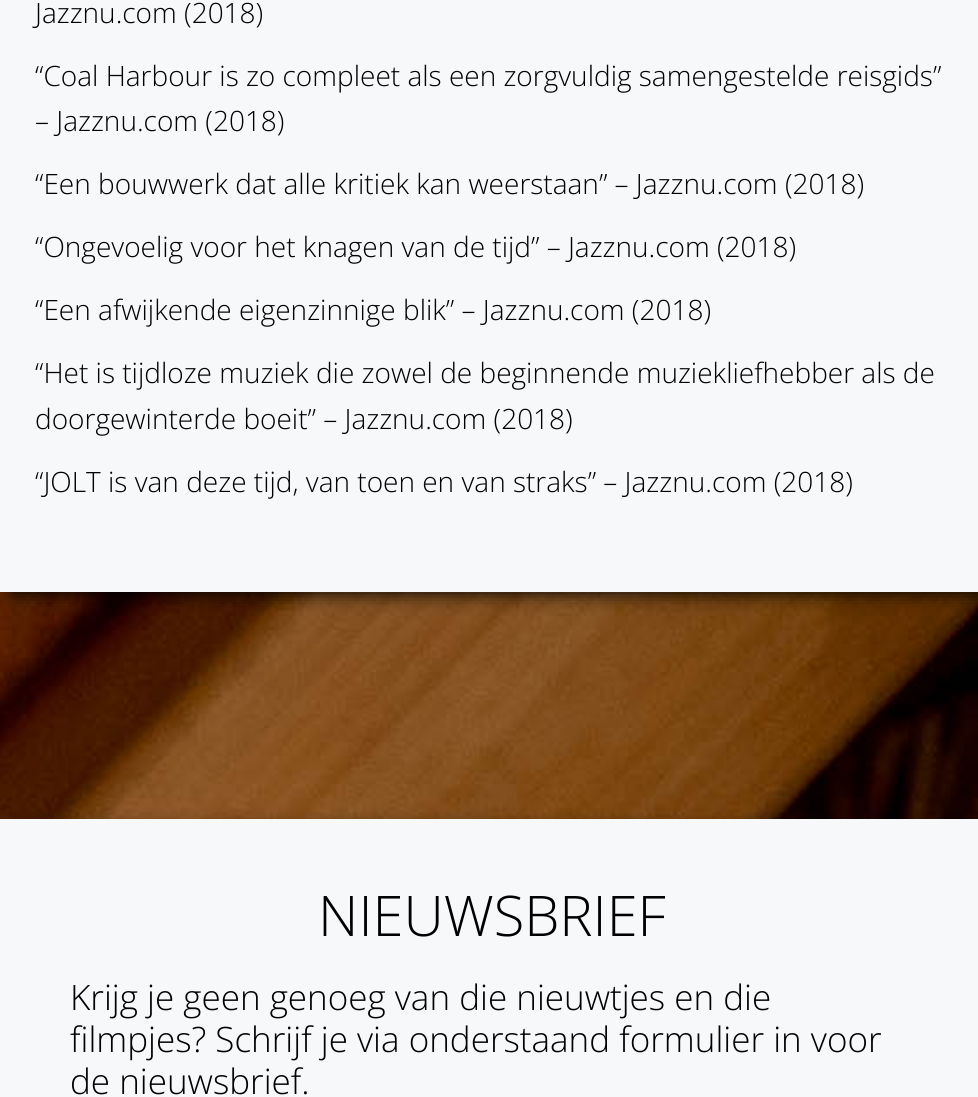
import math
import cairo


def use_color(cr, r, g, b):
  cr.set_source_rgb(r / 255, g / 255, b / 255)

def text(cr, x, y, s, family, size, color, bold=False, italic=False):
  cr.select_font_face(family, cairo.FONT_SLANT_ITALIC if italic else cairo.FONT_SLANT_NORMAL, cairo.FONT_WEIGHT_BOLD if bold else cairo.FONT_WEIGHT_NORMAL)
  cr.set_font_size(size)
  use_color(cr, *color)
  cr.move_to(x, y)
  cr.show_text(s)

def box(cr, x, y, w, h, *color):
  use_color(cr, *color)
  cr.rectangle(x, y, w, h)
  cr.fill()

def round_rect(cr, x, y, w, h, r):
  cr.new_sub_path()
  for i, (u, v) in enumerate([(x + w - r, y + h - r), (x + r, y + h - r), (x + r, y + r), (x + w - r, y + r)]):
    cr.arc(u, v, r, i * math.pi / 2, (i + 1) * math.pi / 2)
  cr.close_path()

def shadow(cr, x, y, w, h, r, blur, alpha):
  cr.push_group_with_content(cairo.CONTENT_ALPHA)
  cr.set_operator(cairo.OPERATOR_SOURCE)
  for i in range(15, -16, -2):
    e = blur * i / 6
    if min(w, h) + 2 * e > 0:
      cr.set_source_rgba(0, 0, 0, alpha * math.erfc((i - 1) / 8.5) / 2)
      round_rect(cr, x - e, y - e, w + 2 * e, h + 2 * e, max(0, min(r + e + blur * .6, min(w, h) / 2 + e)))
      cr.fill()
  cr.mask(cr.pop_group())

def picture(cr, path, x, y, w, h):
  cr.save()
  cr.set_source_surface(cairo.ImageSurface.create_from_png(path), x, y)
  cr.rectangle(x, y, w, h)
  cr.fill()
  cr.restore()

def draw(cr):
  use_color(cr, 255, 255, 255)
  cr.paint()
  picture(cr, "img_01.png", 0, 592, 978, 227)
  use_color(cr, 0, 0, 0)
  shadow(cr, 12, -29, 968, 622, 0, 9.5, 1)
  box(cr, 0, 0, 978, 592, 247, 248, 250)
  use_color(cr, 0, 0, 0)
  shadow(cr, 12, 831, 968, 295, 0, 9.5, 1)
  box(cr, 0, 819, 978, 278, 247, 248, 250)
  text(cr, 35, 23, "Jazznu.com (2018)", "Open Sans Light", 28, (0, 0, 0))
  text(cr, 35, 86, "“Coal Harbour is zo compleet als een zorgvuldig samengestelde reisgids”", "Open Sans Light", 28, (0, 0, 0))
  text(cr, 35, 131, "– Jazznu.com (2018)", "Open Sans Light", 28, (0, 0, 0))
  text(cr, 35, 194, "“Een bouwwerk dat alle kritiek kan weerstaan” – Jazznu.com (2018)", "Open Sans Light", 28, (0, 0, 0))
  text(cr, 35, 257, "“Ongevoelig voor het knagen van de tijd” – Jazznu.com (2018)", "Open Sans Light", 28, (0, 0, 0))
  text(cr, 35, 320, "“Een afwijkende eigenzinnige blik” – Jazznu.com (2018)", "Open Sans Light", 28, (0, 0, 0))
  text(cr, 35, 383, "“Het is tijdloze muziek die zowel de beginnende muziekliefhebber als de", "Open Sans Light", 28, (0, 0, 0))
  text(cr, 35, 429, "doorgewinterde boeit” – Jazznu.com (2018)", "Open Sans Light", 28, (0, 0, 0))
  text(cr, 35, 492, "“JOLT is van deze tijd, van toen en van straks” – Jazznu.com (2018)", "Open Sans Light", 28, (0, 0, 0))
  text(cr, 318, 936, "NIEUWSBRIEF", "Open Sans Light", 56, (0, 0, 0))
  text(cr, 70, 1010, "Krijg je geen genoeg van die nieuwtjes en die", "Open Sans Light", 35, (0, 0, 0))
  text(cr, 70, 1052, "filmpjes? Schrijf je via onderstaand formulier in voor", "Open Sans Light", 35, (0, 0, 0))
  text(cr, 70, 1094, "de nieuwsbrief.", "Open Sans Light", 35, (0, 0, 0))


surface = cairo.ImageSurface(cairo.FORMAT_RGB24, 978, 1097)
cr = cairo.Context(surface)
options = cairo.FontOptions()
options.set_hint_metrics(cairo.HINT_METRICS_OFF)
options.set_hint_style(cairo.HINT_STYLE_NONE)
cr.set_font_options(options)
cr.set_miter_limit(4)
draw(cr)
surface.write_to_png("out.png")
